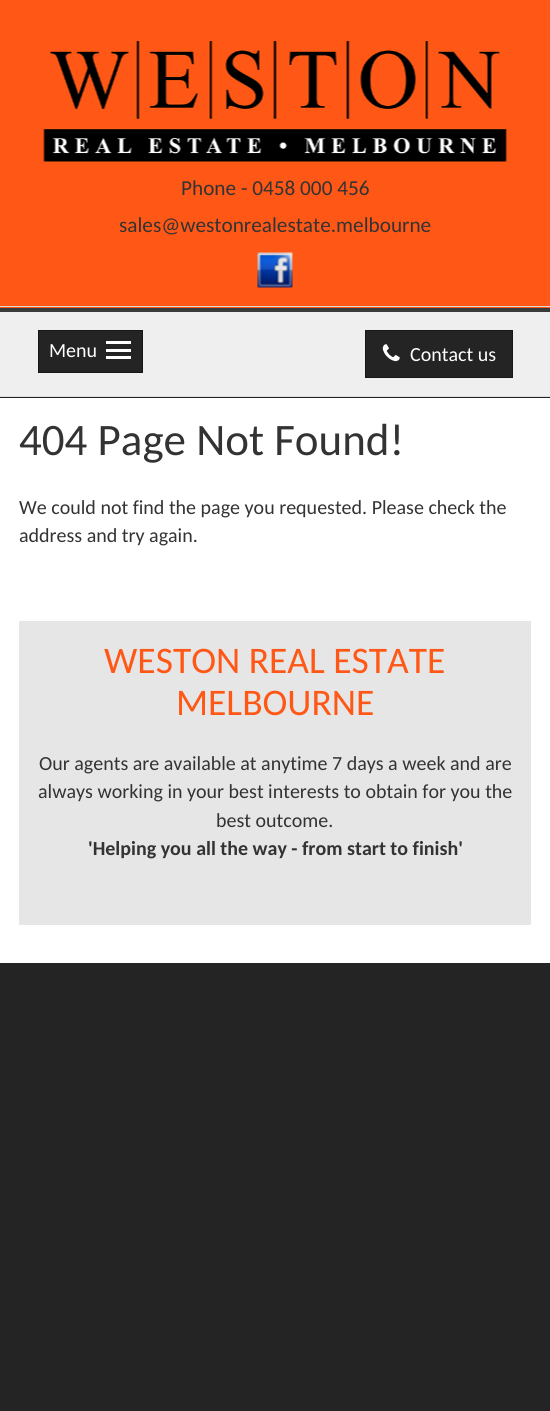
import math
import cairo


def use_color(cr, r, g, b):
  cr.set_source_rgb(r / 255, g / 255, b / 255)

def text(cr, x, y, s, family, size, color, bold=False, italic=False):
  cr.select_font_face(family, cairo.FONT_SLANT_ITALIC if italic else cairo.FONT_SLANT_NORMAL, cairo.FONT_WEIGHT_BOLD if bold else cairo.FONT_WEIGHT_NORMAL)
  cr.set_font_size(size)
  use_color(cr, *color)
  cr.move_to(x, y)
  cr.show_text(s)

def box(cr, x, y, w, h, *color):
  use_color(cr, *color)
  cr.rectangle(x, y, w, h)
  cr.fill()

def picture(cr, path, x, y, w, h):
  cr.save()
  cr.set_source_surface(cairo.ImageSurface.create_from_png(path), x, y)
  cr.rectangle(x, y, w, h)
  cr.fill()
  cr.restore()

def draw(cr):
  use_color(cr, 36, 36, 36)
  cr.paint()
  box(cr, 0, 0, 550, 308, 255, 87, 22)
  box(cr, 0, 306, 550, 1, 221, 221, 221)
  picture(cr, "img_01.png", 43, 41, 464, 122)
  picture(cr, "img_02.png", 257, 252, 36, 36)
  box(cr, 0, 312, 550, 84, 239, 239, 239)
  box(cr, 0, 308, 550, 4, 58, 58, 58)
  use_color(cr, 36, 36, 36)
  cr.rectangle(38.5, 330.5, 104, 42)
  cr.fill_preserve()
  use_color(cr, 23, 23, 23)
  cr.set_line_width(1)
  cr.stroke()
  box(cr, 106, 341, 25, 3, 255, 255, 255)
  box(cr, 106, 349, 25, 3, 255, 255, 255)
  box(cr, 106, 356, 25, 3, 255, 255, 255)
  use_color(cr, 36, 36, 36)
  cr.rectangle(365.5, 330.5, 147, 47)
  cr.fill_preserve()
  use_color(cr, 23, 23, 23)
  cr.stroke()
  picture(cr, "img_03.png", 382, 344, 18, 18)
  box(cr, 0, 396, 550, 1, 220, 220, 220)
  box(cr, 0, 398, 550, 565, 255, 255, 255)
  box(cr, 19, 621, 512, 304, 230, 230, 230)
  text(cr, 181, 195, "Phone - 0458 000 456", "Carlito", 21.25, (51, 51, 51))
  text(cr, 119, 232, "sales@westonrealestate.melbourne", "Carlito", 21.25, (51, 51, 51))
  text(cr, 49, 357, "Menu", "Carlito", 20, (255, 255, 255))
  text(cr, 410, 361, "Contact us", "Carlito", 20, (255, 255, 255))
  text(cr, 19, 455, "404 Page Not Found!", "Carlito", 45, (51, 51, 51))
  text(cr, 19, 514, "We could not find the page you requested. Please check the", "Carlito", 20, (51, 51, 51))
  text(cr, 19, 542, "address and try again.", "Carlito", 20, (51, 51, 51))
  text(cr, 104, 673, "WESTON REAL ESTATE", "Carlito", 37.5, (255, 87, 22))
  text(cr, 176, 715, "MELBOURNE", "Carlito", 37.5, (255, 87, 22))
  text(cr, 39, 770, "Our agents are available at anytime 7 days a week and are", "Carlito", 20, (51, 51, 51))
  text(cr, 38, 798, "always working in your best interests to obtain for you the", "Carlito", 20, (51, 51, 51))
  text(cr, 216, 827, "best outcome.", "Carlito", 20, (51, 51, 51))
  text(cr, 88, 855, "'Helping you all the way - from start to finish'", "Carlito", 20, (51, 51, 51), bold=True)


surface = cairo.ImageSurface(cairo.FORMAT_RGB24, 550, 1411)
cr = cairo.Context(surface)
options = cairo.FontOptions()
options.set_hint_metrics(cairo.HINT_METRICS_OFF)
options.set_hint_style(cairo.HINT_STYLE_NONE)
cr.set_font_options(options)
cr.set_miter_limit(4)
draw(cr)
surface.write_to_png("out.png")
